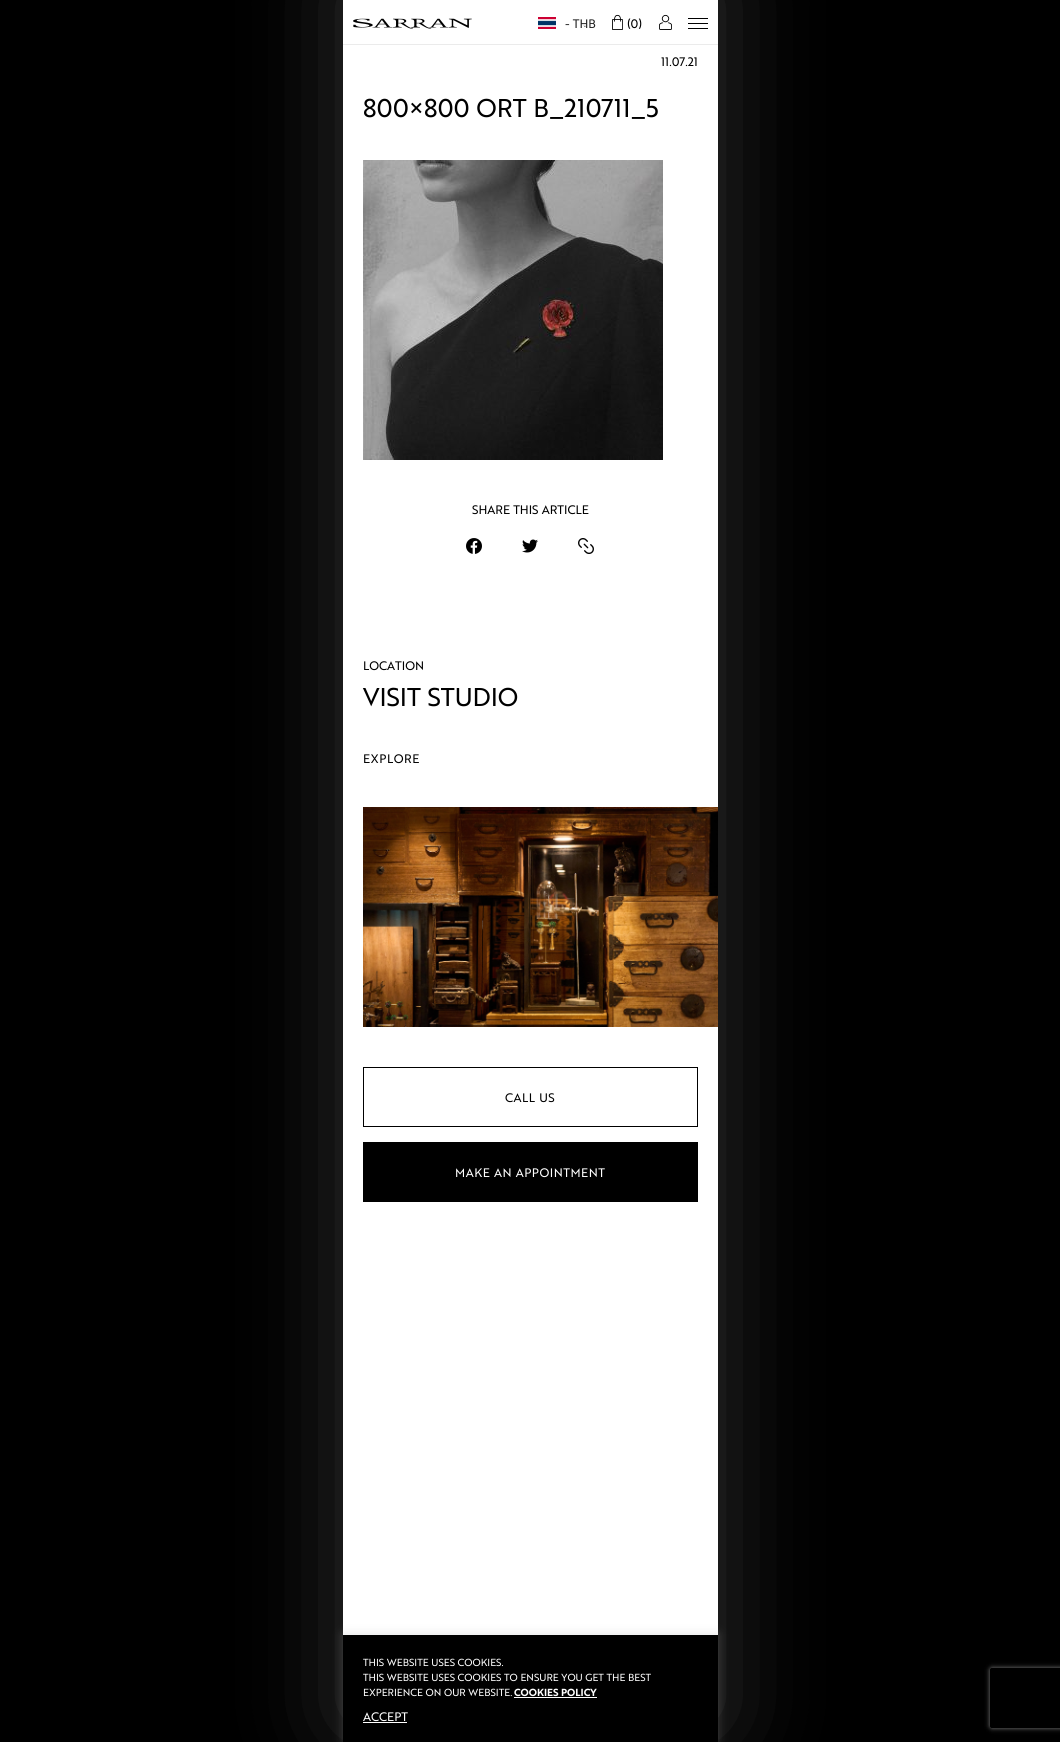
import math
import cairo


def use_color(cr, r, g, b):
  cr.set_source_rgb(r / 255, g / 255, b / 255)

def text(cr, x, y, s, family, size, color, bold=False, italic=False):
  cr.select_font_face(family, cairo.FONT_SLANT_ITALIC if italic else cairo.FONT_SLANT_NORMAL, cairo.FONT_WEIGHT_BOLD if bold else cairo.FONT_WEIGHT_NORMAL)
  cr.set_font_size(size)
  use_color(cr, *color)
  cr.move_to(x, y)
  cr.show_text(s)

def spaced_text(cr, x, y, s, letter, word):
  cr.move_to(x, y)
  for ch in s:
    cr.show_text(ch)
    cr.rel_move_to(letter + word * (ch == ' '), 0)

def box(cr, x, y, w, h, *color):
  use_color(cr, *color)
  cr.rectangle(x, y, w, h)
  cr.fill()

def round_rect(cr, x, y, w, h, r):
  cr.new_sub_path()
  for i, (u, v) in enumerate([(x + w - r, y + h - r), (x + r, y + h - r), (x + r, y + r), (x + w - r, y + r)]):
    cr.arc(u, v, r, i * math.pi / 2, (i + 1) * math.pi / 2)
  cr.close_path()

def shadow(cr, x, y, w, h, r, blur, alpha):
  cr.push_group_with_content(cairo.CONTENT_ALPHA)
  cr.set_operator(cairo.OPERATOR_SOURCE)
  for i in range(15, -16, -2):
    e = blur * i / 6
    if min(w, h) + 2 * e > 0:
      cr.set_source_rgba(0, 0, 0, alpha * math.erfc((i - 1) / 8.5) / 2)
      round_rect(cr, x - e, y - e, w + 2 * e, h + 2 * e, max(0, min(r + e + blur * .6, min(w, h) / 2 + e)))
      cr.fill()
  cr.mask(cr.pop_group())

def picture(cr, path, x, y, w, h):
  cr.save()
  cr.set_source_surface(cairo.ImageSurface.create_from_png(path), x, y)
  cr.rectangle(x, y, w, h)
  cr.fill()
  cr.restore()

def draw(cr):
  use_color(cr, 0, 0, 0)
  cr.paint()
  use_color(cr, 255, 255, 255)
  shadow(cr, 343, -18, 375, 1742, 0, 50, 0.2)
  box(cr, 343, 0, 375, 1635, 255, 255, 255)
  box(cr, 343, 44, 375, 1, 235, 235, 235)
  picture(cr, "img_01.png", 353, 18, 119, 11)
  picture(cr, "img_02.png", 538, 17, 18, 12)
  use_color(cr, 33, 33, 33)
  cr.new_path()
  cr.move_to(586, 25.5)
  cr.line_to(585, 27)
  cr.line_to(584.5, 26.5)
  cr.close_path()
  cr.fill()
  cr.new_path()
  cr.move_to(584, 25.5)
  cr.line_to(585, 26.5)
  cr.line_to(585, 27)
  cr.line_to(583.5, 25.5)
  cr.close_path()
  cr.fill()
  picture(cr, "img_03.png", 612, 14, 11, 16)
  picture(cr, "img_04.png", 659, 14, 13, 16)
  box(cr, 688, 23, 20, 1, 0, 0, 0)
  box(cr, 688, 18, 20, 1, 0, 0, 0)
  box(cr, 688, 28, 20, 1, 0, 0, 0)
  picture(cr, "img_05.png", 363, 160, 300, 300)
  picture(cr, "img_06.png", 466, 538, 16, 16)
  picture(cr, "img_07.png", 522, 539, 16, 14)
  picture(cr, "img_08.png", 578, 538, 16, 16)
  picture(cr, "img_09.png", 363, 807, 355, 220)
  cr.rectangle(363.5, 1067.5, 334, 59)
  cr.set_line_width(1)
  cr.stroke()
  box(cr, 363, 1142, 335, 60, 0, 0, 0)
  use_color(cr, 172, 171, 171)
  shadow(cr, 343, 1634, 375, 107, 0, 5, 0.3)
  box(cr, 343, 1635, 375, 107, 0, 0, 0)
  box(cr, 514, 1697, 83, 1, 255, 255, 255)
  box(cr, 363, 1722, 44, 1, 255, 255, 255)
  cr.save()
  cr.set_fill_rule(cairo.FILL_RULE_EVEN_ODD)
  cr.new_path()
  cr.move_to(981, 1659)
  cr.line_to(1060, 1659)
  cr.line_to(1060, 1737)
  cr.line_to(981, 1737)
  cr.close_path()
  cr.move_to(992, 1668)
  cr.line_to(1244, 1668)
  cr.curve_to(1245, 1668, 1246, 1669, 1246, 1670)
  cr.line_to(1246, 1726)
  cr.curve_to(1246, 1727, 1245, 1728, 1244, 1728)
  cr.line_to(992, 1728)
  cr.curve_to(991, 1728, 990, 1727, 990, 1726)
  cr.line_to(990, 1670)
  cr.curve_to(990, 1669, 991, 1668, 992, 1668)
  cr.close_path()
  cr.clip()
  use_color(cr, 128, 128, 128)
  shadow(cr, 990, 1668, 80, 60, 2, 2.5, 1)
  cr.restore()
  text(cr, 565, 28, "- THB", "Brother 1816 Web", 12, (33, 33, 33))
  text(cr, 627, 28, "(0)", "Brother 1816 Web", 12, (0, 0, 0))
  text(cr, 661, 66, "11.07.21", "Brother 1816 Web", 12, (0, 0, 0))
  text(cr, 363, 117, "800×800 ORT B_210711_5", "Brother 1816 Web", 25, (0, 0, 0))
  text(cr, 472, 514, "SHARE THIS ARTICLE", "Brother 1816 Web", 12, (0, 0, 0))
  text(cr, 363, 670, "LOCATION", "Brother 1816 Web", 12, (0, 0, 0))
  text(cr, 363, 706, "VISIT STUDIO", "Brother 1816 Web", 25, (0, 0, 0))
  cr.set_font_size(12)
  spaced_text(cr, 363, 763, "EXPLORE", 0.5, 0)
  spaced_text(cr, 505, 1102, "CALL US", 0.5, 0)
  use_color(cr, 255, 255, 255)
  spaced_text(cr, 455, 1177, "MAKE AN APPOINTMENT", 0.5, 0)
  text(cr, 363, 1666, "THIS WEBSITE USES COOKIES.", "Brother 1816 Web", 10, (255, 255, 255))
  text(cr, 363, 1681, "THIS WEBSITE USES COOKIES TO ENSURE YOU GET THE BEST", "Brother 1816 Web", 10, (255, 255, 255))
  text(cr, 363, 1696, "EXPERIENCE ON OUR WEBSITE.", "Brother 1816 Web", 10, (255, 255, 255))
  text(cr, 514, 1696, "COOKIES POLICY", "Brother 1816 Web", 10, (255, 255, 255), bold=True)
  text(cr, 363, 1721, "ACCEPT", "Brother 1816 Web", 12, (255, 255, 255))


surface = cairo.ImageSurface(cairo.FORMAT_RGB24, 1060, 1742)
cr = cairo.Context(surface)
options = cairo.FontOptions()
options.set_hint_metrics(cairo.HINT_METRICS_OFF)
options.set_hint_style(cairo.HINT_STYLE_NONE)
cr.set_font_options(options)
cr.set_miter_limit(4)
draw(cr)
surface.write_to_png("out.png")
